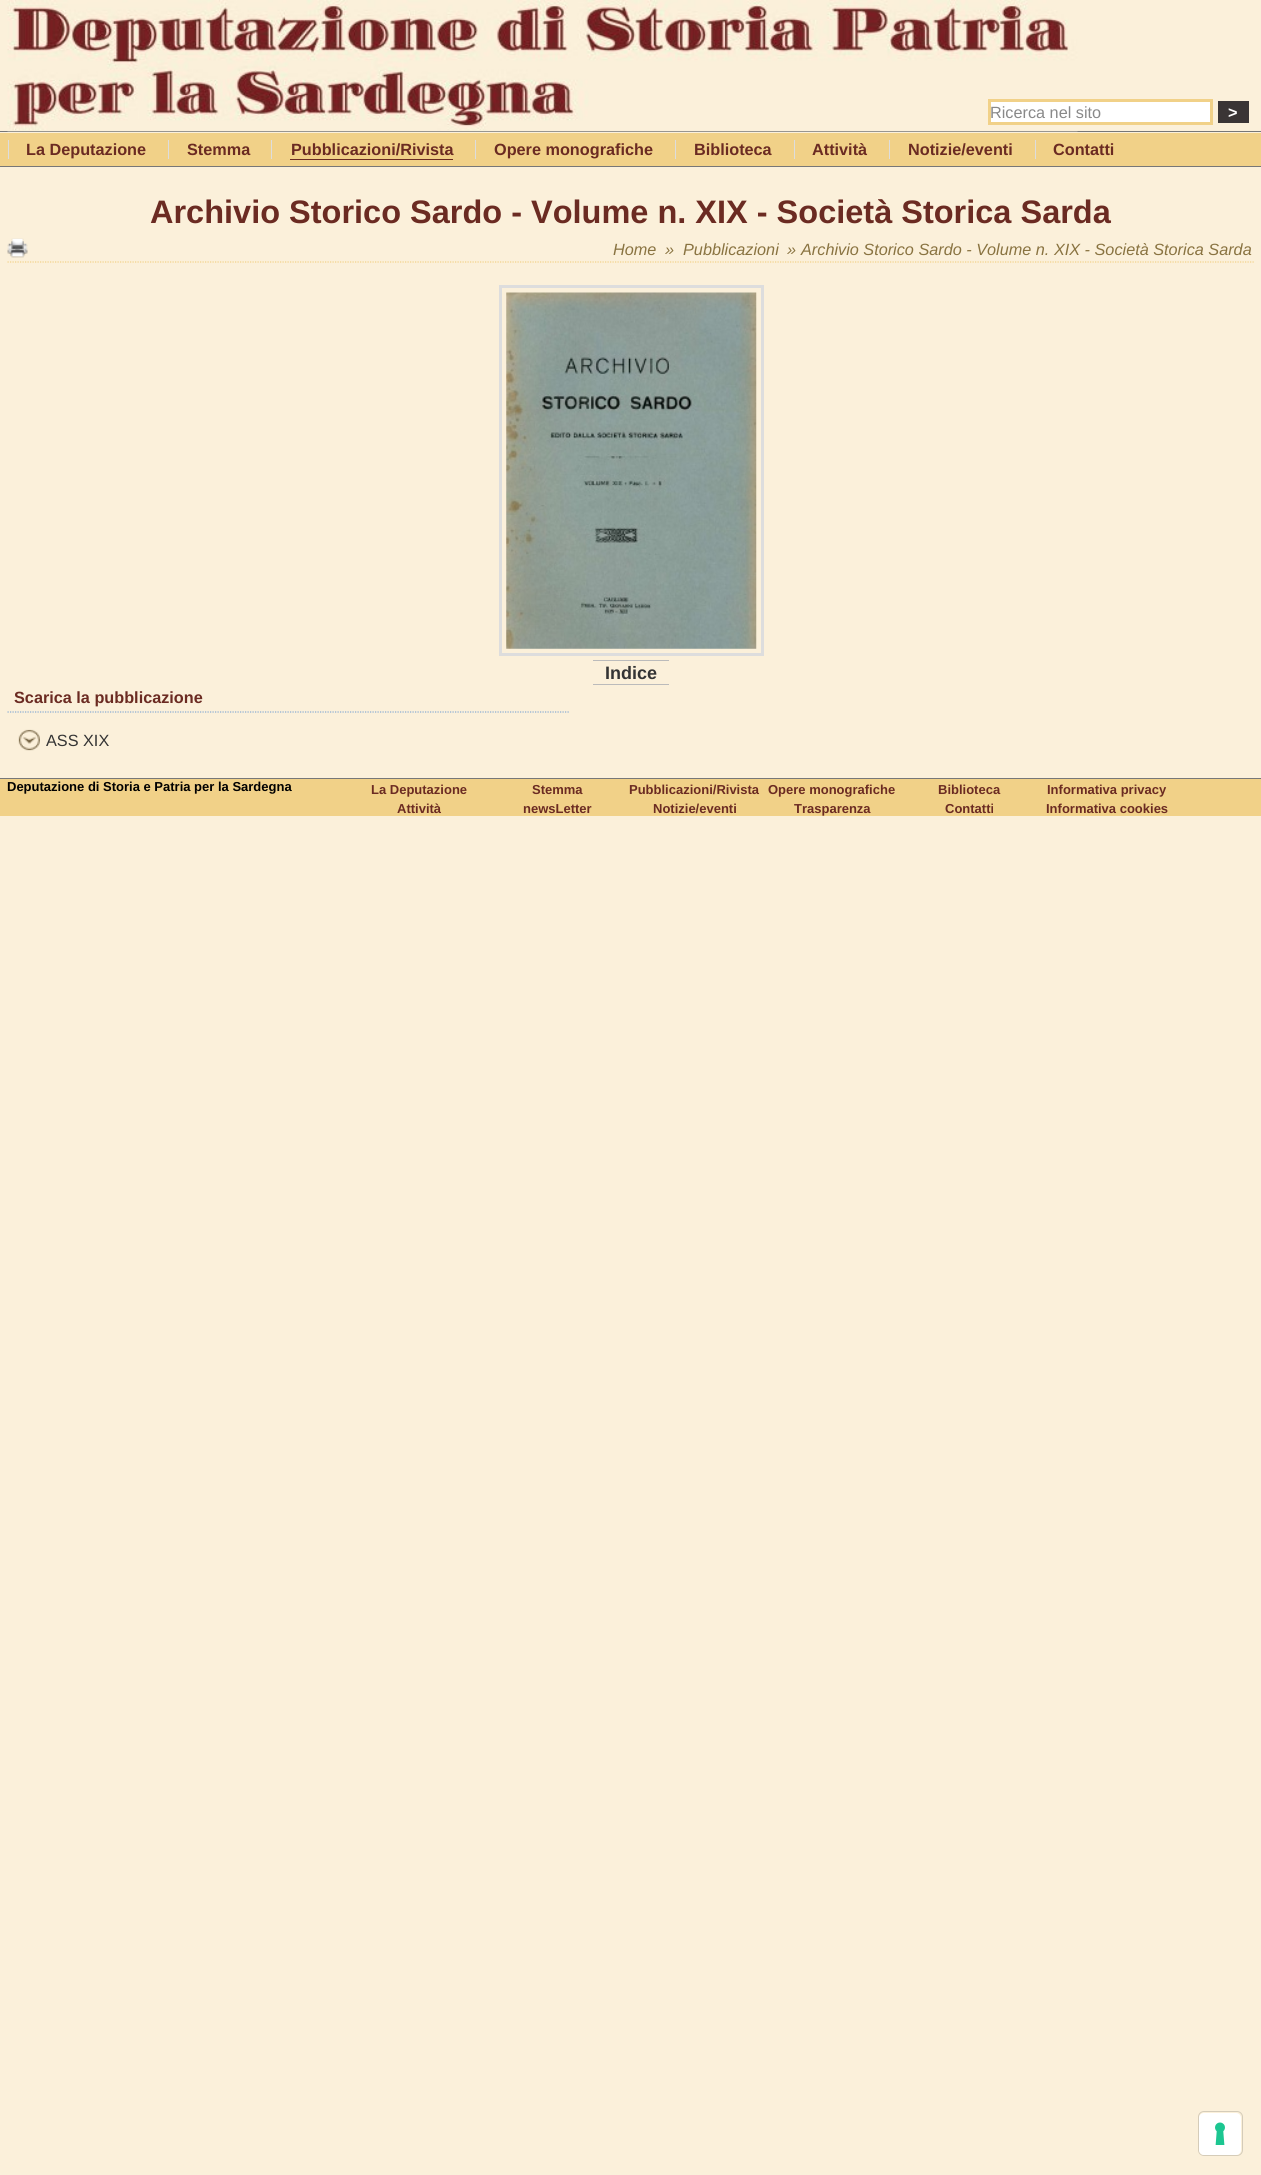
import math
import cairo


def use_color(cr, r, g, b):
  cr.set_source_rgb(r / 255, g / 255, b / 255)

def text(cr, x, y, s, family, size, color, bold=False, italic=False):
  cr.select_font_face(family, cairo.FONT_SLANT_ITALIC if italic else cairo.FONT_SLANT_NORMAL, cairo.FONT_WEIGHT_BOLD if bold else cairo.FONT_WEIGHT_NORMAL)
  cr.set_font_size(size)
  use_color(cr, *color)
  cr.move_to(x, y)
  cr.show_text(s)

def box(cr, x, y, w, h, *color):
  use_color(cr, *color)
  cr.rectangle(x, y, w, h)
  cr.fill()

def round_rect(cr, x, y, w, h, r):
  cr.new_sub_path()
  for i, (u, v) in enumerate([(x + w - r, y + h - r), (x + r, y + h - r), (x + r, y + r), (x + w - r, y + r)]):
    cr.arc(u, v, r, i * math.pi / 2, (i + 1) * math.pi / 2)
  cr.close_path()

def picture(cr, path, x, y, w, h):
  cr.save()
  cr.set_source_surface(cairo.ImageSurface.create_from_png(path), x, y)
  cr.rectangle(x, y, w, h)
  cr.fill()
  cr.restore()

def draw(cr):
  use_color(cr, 251, 240, 218)
  cr.paint()
  box(cr, 0, 131, 1261, 1, 119, 119, 119)
  picture(cr, "img_01.png", 7, 0, 1071, 132)
  use_color(cr, 255, 255, 255)
  cr.rectangle(989.5, 100.5, 222, 23)
  cr.fill_preserve()
  use_color(cr, 241, 209, 136)
  cr.set_line_width(3)
  cr.stroke()
  box(cr, 1218, 101, 31, 22, 58, 53, 53)
  box(cr, 0, 133, 1261, 33, 241, 209, 136)
  box(cr, 0, 166, 1261, 1, 119, 119, 119)
  box(cr, 8, 140, 1, 19, 221, 221, 221)
  box(cr, 168, 140, 1, 19, 221, 221, 221)
  box(cr, 271, 140, 1, 19, 221, 221, 221)
  box(cr, 290, 159, 163, 1, 107, 43, 34)
  box(cr, 475, 140, 1, 19, 221, 221, 221)
  box(cr, 675, 140, 1, 19, 221, 221, 221)
  box(cr, 794, 140, 1, 19, 221, 221, 221)
  box(cr, 889, 140, 1, 19, 221, 221, 221)
  box(cr, 1035, 140, 1, 19, 221, 221, 221)
  cr.new_path()
  cr.move_to(7.5, 262)
  cr.line_to(1255, 262)
  use_color(cr, 241, 209, 136)
  cr.set_line_width(1.2)
  cr.set_dash([1.25, 1.25])
  cr.stroke()
  picture(cr, "img_02.png", 7, 238, 21, 20)
  cr.rectangle(500.5, 286.5, 262, 368)
  use_color(cr, 221, 221, 221)
  cr.set_line_width(3)
  cr.set_dash([])
  cr.stroke()
  picture(cr, "img_03.png", 506, 292, 251, 357)
  box(cr, 593, 660, 76, 1, 187, 187, 187)
  box(cr, 593, 684, 76, 1, 187, 187, 187)
  cr.new_path()
  cr.move_to(7.5, 712)
  cr.line_to(569, 712)
  use_color(cr, 135, 170, 210)
  cr.set_line_width(1.2)
  cr.set_dash([1.25, 1.25])
  cr.stroke()
  picture(cr, "img_04.png", 18, 729, 22, 22)
  box(cr, 0, 779, 1261, 37, 241, 209, 136)
  box(cr, 0, 778, 1261, 1, 119, 119, 119)
  round_rect(cr, 1198.5, 2111.5, 44, 44, 5.5)
  use_color(cr, 213, 204, 185)
  cr.set_line_width(1)
  cr.set_dash([])
  cr.stroke()
  use_color(cr, 255, 255, 255)
  round_rect(cr, 1199, 2113, 42, 42, 5)
  cr.fill()
  picture(cr, "img_05.png", 1215, 2122, 10, 23)
  text(cr, 990, 118, "Ricerca nel sito", "Liberation Sans", 16.25, (137, 137, 137))
  text(cr, 1228, 118, ">", "Liberation Sans", 16.25, (255, 255, 255), bold=True)
  text(cr, 26, 155, "La Deputazione", "Liberation Sans", 16.25, (107, 43, 34), bold=True)
  text(cr, 187, 155, "Stemma", "Liberation Sans", 16.25, (107, 43, 34), bold=True)
  text(cr, 291, 155, "Pubblicazioni/Rivista", "Liberation Sans", 16.25, (107, 43, 34), bold=True)
  text(cr, 494, 155, "Opere monografiche", "Liberation Sans", 16.25, (107, 43, 34), bold=True)
  text(cr, 694, 155, "Biblioteca", "Liberation Sans", 16.25, (107, 43, 34), bold=True)
  text(cr, 812, 155, "Attività", "Liberation Sans", 16.25, (107, 43, 34), bold=True)
  text(cr, 908, 155, "Notizie/eventi", "Liberation Sans", 16.25, (107, 43, 34), bold=True)
  text(cr, 1053, 155, "Contatti", "Liberation Sans", 16.25, (107, 43, 34), bold=True)
  text(cr, 150, 223, "Archivio Storico Sardo - Volume n. XIX - Società Storica Sarda", "Liberation Sans", 32.5, (107, 43, 34), bold=True)
  text(cr, 613, 255, "Home", "Liberation Sans", 16.25, (137, 115, 65), italic=True)
  text(cr, 665, 255, "»", "Liberation Sans", 16.25, (137, 115, 65), italic=True)
  text(cr, 683, 255, "Pubblicazioni", "Liberation Sans", 16.25, (137, 115, 65), italic=True)
  text(cr, 787, 255, "»", "Liberation Sans", 16.25, (137, 115, 65), italic=True)
  text(cr, 801, 255, "Archivio Storico Sardo - Volume n. XIX - Società Storica Sarda", "Liberation Sans", 16.25, (137, 115, 65), italic=True)
  text(cr, 605, 679, "Indice", "Liberation Sans", 18, (52, 52, 52), bold=True)
  text(cr, 14, 703, "Scarica la pubblicazione", "Liberation Sans", 16.25, (107, 43, 34), bold=True)
  text(cr, 46, 746, "ASS XIX", "Liberation Sans", 16.25, (52, 52, 52))
  text(cr, 7, 791, "Deputazione di Storia e Patria per la Sardegna", "Liberation Sans", 13, (0, 0, 0), bold=True)
  text(cr, 371, 794, "La Deputazione", "Liberation Sans", 13, (107, 43, 34), bold=True)
  text(cr, 532, 794, "Stemma", "Liberation Sans", 13, (107, 43, 34), bold=True)
  text(cr, 629, 794, "Pubblicazioni/Rivista", "Liberation Sans", 13, (107, 43, 34), bold=True)
  text(cr, 768, 794, "Opere monografiche", "Liberation Sans", 13, (107, 43, 34), bold=True)
  text(cr, 938, 794, "Biblioteca", "Liberation Sans", 13, (107, 43, 34), bold=True)
  text(cr, 1047, 794, "Informativa privacy", "Liberation Sans", 13, (107, 43, 34), bold=True)
  text(cr, 397, 813, "Attività", "Liberation Sans", 13, (107, 43, 34), bold=True)
  text(cr, 523, 813, "newsLetter", "Liberation Sans", 13, (107, 43, 34), bold=True)
  text(cr, 653, 813, "Notizie/eventi", "Liberation Sans", 13, (107, 43, 34), bold=True)
  text(cr, 794, 813, "Trasparenza", "Liberation Sans", 13, (107, 43, 34), bold=True)
  text(cr, 945, 813, "Contatti", "Liberation Sans", 13, (107, 43, 34), bold=True)
  text(cr, 1046, 813, "Informativa cookies", "Liberation Sans", 13, (107, 43, 34), bold=True)


surface = cairo.ImageSurface(cairo.FORMAT_RGB24, 1261, 2175)
cr = cairo.Context(surface)
options = cairo.FontOptions()
options.set_hint_metrics(cairo.HINT_METRICS_OFF)
options.set_hint_style(cairo.HINT_STYLE_NONE)
cr.set_font_options(options)
cr.set_miter_limit(4)
draw(cr)
surface.write_to_png("out.png")
